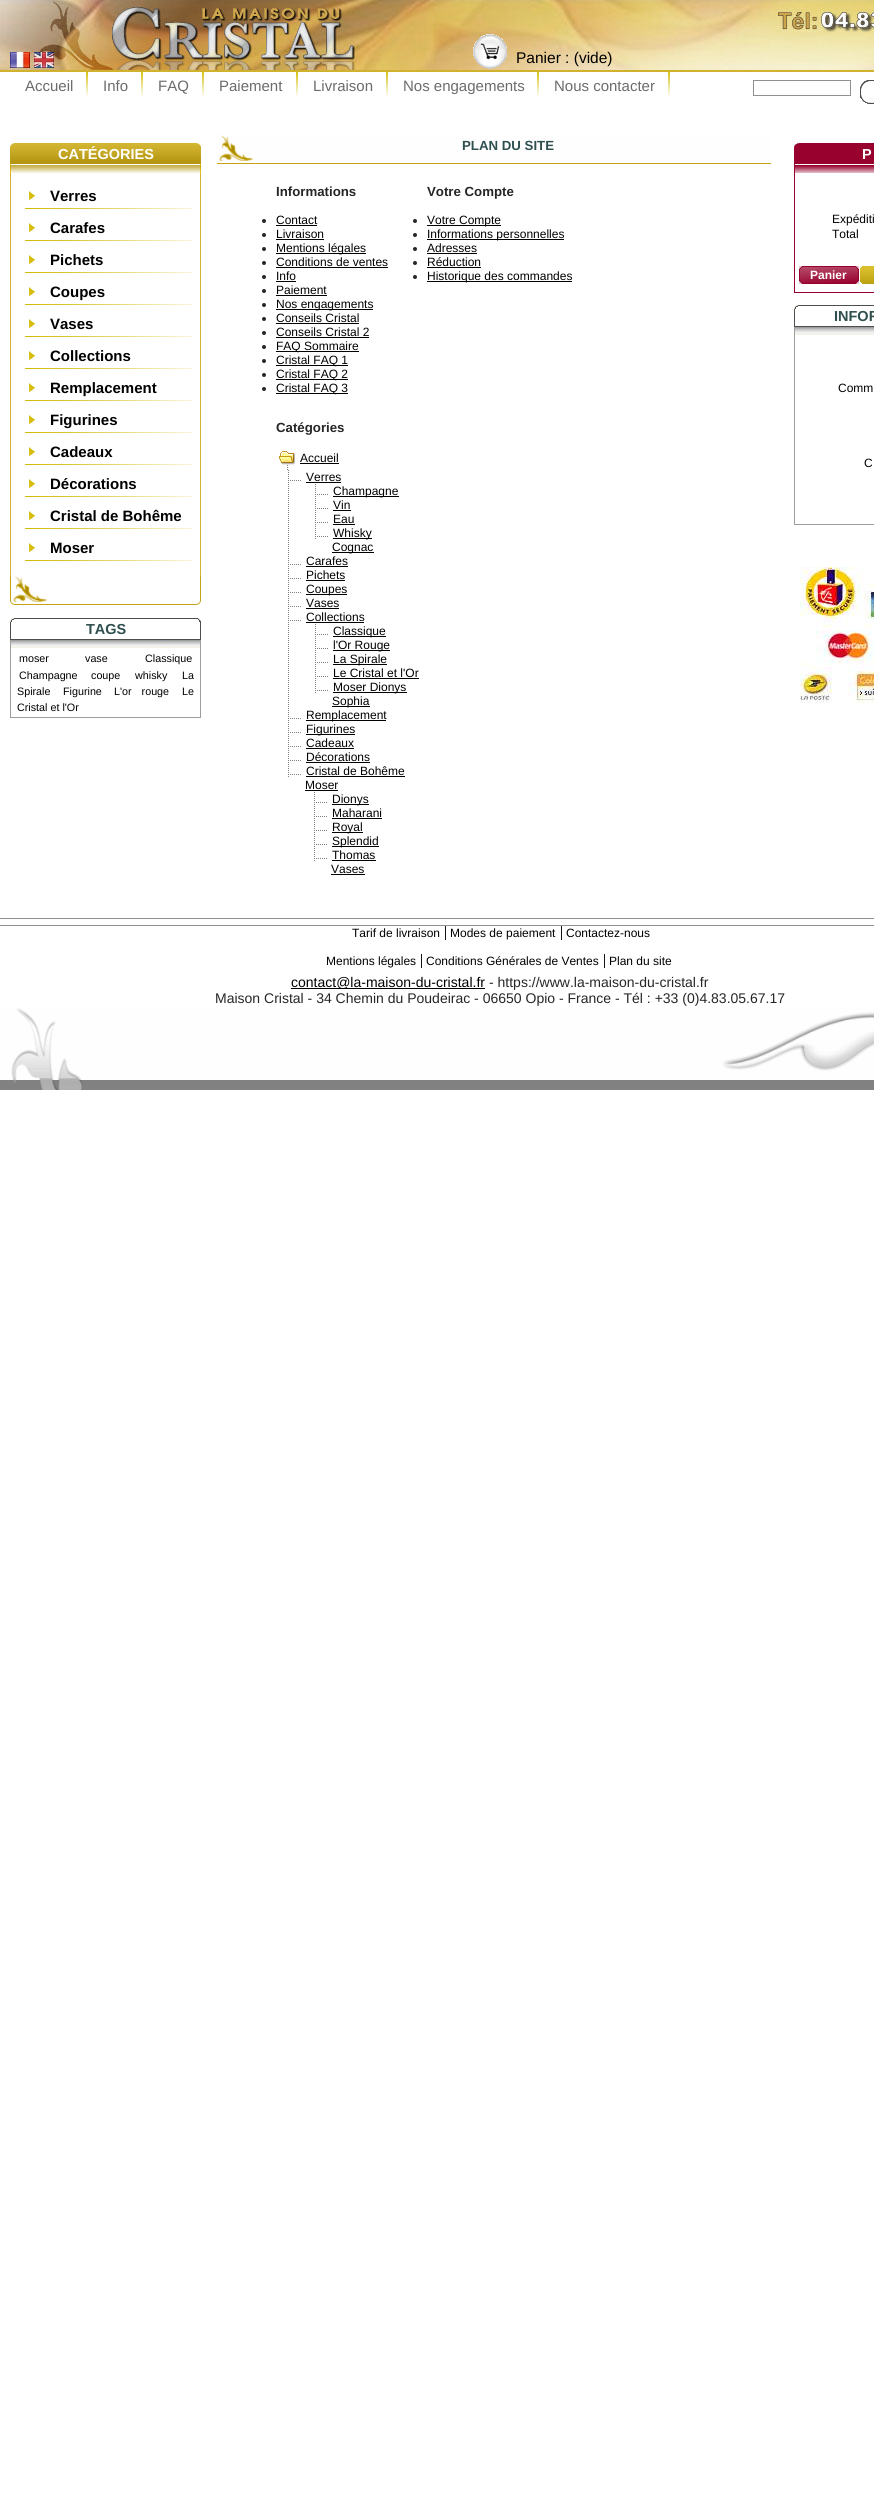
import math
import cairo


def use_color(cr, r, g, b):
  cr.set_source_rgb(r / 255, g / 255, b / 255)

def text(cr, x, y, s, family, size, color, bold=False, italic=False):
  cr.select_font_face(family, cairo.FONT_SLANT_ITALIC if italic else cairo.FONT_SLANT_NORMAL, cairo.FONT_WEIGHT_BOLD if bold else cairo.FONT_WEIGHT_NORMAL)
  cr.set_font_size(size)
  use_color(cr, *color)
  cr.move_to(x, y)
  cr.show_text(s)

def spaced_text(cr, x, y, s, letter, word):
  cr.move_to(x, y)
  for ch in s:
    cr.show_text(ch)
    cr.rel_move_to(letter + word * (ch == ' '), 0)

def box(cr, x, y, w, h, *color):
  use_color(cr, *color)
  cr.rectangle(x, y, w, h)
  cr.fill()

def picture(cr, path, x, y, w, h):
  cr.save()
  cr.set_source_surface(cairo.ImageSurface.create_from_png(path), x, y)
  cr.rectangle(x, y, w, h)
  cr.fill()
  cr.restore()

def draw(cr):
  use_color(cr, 255, 255, 255)
  cr.paint()
  picture(cr, "img_01.png", 0, 0, 874, 70)
  picture(cr, "img_02.png", 10, 52, 20, 16)
  picture(cr, "img_03.png", 34, 52, 20, 16)
  picture(cr, "img_04.png", 473, 34, 34, 35)
  cr.rectangle(753.5, 80.5, 97, 15)
  use_color(cr, 144, 144, 144)
  cr.set_line_width(1)
  cr.stroke()
  picture(cr, "img_05.png", 860, 80, 14, 24)
  box(cr, 0, 70, 874, 2, 208, 178, 47)
  picture(cr, "img_06.png", 86, 72, 2, 25)
  picture(cr, "img_06.png", 141, 72, 2, 25)
  picture(cr, "img_06.png", 202, 72, 2, 25)
  picture(cr, "img_06.png", 296, 72, 2, 25)
  picture(cr, "img_06.png", 386, 72, 2, 25)
  picture(cr, "img_06.png", 537, 72, 2, 25)
  picture(cr, "img_06.png", 668, 72, 2, 25)
  picture(cr, "img_07.png", 10, 576, 191, 29)
  picture(cr, "img_08.png", 10, 143, 191, 30)
  box(cr, 200, 173, 1, 403, 208, 178, 47)
  box(cr, 10, 173, 1, 403, 208, 178, 47)
  picture(cr, "img_09.png", 25, 191, 167, 18)
  picture(cr, "img_09.png", 25, 223, 167, 18)
  picture(cr, "img_09.png", 25, 255, 167, 18)
  picture(cr, "img_09.png", 25, 287, 167, 18)
  picture(cr, "img_09.png", 25, 319, 167, 18)
  picture(cr, "img_09.png", 25, 351, 167, 18)
  picture(cr, "img_09.png", 25, 383, 167, 18)
  picture(cr, "img_09.png", 25, 415, 167, 18)
  picture(cr, "img_09.png", 25, 447, 167, 18)
  picture(cr, "img_09.png", 25, 479, 167, 18)
  picture(cr, "img_09.png", 25, 511, 167, 18)
  picture(cr, "img_09.png", 25, 543, 167, 18)
  picture(cr, "img_10.png", 10, 618, 191, 30)
  box(cr, 200, 648, 1, 70, 158, 158, 158)
  box(cr, 10, 717, 191, 1, 158, 158, 158)
  box(cr, 10, 648, 1, 70, 158, 158, 158)
  picture(cr, "img_11.png", 217, 135, 554, 29)
  use_color(cr, 38, 38, 38)
  cr.arc(264, 221, 2, 0, 2 * math.pi)
  cr.fill()
  box(cr, 276, 225, 41, 1, 0, 0, 0)
  use_color(cr, 38, 38, 38)
  cr.arc(264, 235, 2, 0, 2 * math.pi)
  cr.fill()
  box(cr, 276, 239, 48, 1, 0, 0, 0)
  use_color(cr, 38, 38, 38)
  cr.arc(264, 249, 2, 0, 2 * math.pi)
  cr.fill()
  box(cr, 276, 253, 90, 1, 0, 0, 0)
  use_color(cr, 38, 38, 38)
  cr.arc(264, 263, 2, 0, 2 * math.pi)
  cr.fill()
  box(cr, 276, 267, 112, 1, 0, 0, 0)
  use_color(cr, 38, 38, 38)
  cr.arc(264, 277, 2, 0, 2 * math.pi)
  cr.fill()
  box(cr, 276, 281, 20, 1, 0, 0, 0)
  use_color(cr, 38, 38, 38)
  cr.arc(264, 291, 2, 0, 2 * math.pi)
  cr.fill()
  box(cr, 276, 295, 51, 1, 0, 0, 0)
  use_color(cr, 38, 38, 38)
  cr.arc(264, 305, 2, 0, 2 * math.pi)
  cr.fill()
  box(cr, 276, 309, 97, 1, 0, 0, 0)
  use_color(cr, 38, 38, 38)
  cr.arc(264, 319, 2, 0, 2 * math.pi)
  cr.fill()
  box(cr, 276, 323, 83, 1, 0, 0, 0)
  use_color(cr, 38, 38, 38)
  cr.arc(264, 333, 2, 0, 2 * math.pi)
  cr.fill()
  box(cr, 276, 337, 93, 1, 0, 0, 0)
  use_color(cr, 38, 38, 38)
  cr.arc(264, 347, 2, 0, 2 * math.pi)
  cr.fill()
  box(cr, 276, 351, 83, 1, 0, 0, 0)
  use_color(cr, 38, 38, 38)
  cr.arc(264, 361, 2, 0, 2 * math.pi)
  cr.fill()
  box(cr, 276, 365, 72, 1, 0, 0, 0)
  use_color(cr, 38, 38, 38)
  cr.arc(264, 375, 2, 0, 2 * math.pi)
  cr.fill()
  box(cr, 276, 379, 72, 1, 0, 0, 0)
  use_color(cr, 38, 38, 38)
  cr.arc(264, 389, 2, 0, 2 * math.pi)
  cr.fill()
  box(cr, 276, 393, 72, 1, 0, 0, 0)
  use_color(cr, 38, 38, 38)
  cr.arc(415, 221, 2, 0, 2 * math.pi)
  cr.fill()
  box(cr, 427, 225, 74, 1, 0, 0, 0)
  use_color(cr, 38, 38, 38)
  cr.arc(415, 235, 2, 0, 2 * math.pi)
  cr.fill()
  box(cr, 427, 239, 137, 1, 0, 0, 0)
  use_color(cr, 38, 38, 38)
  cr.arc(415, 249, 2, 0, 2 * math.pi)
  cr.fill()
  box(cr, 427, 253, 50, 1, 0, 0, 0)
  use_color(cr, 38, 38, 38)
  cr.arc(415, 263, 2, 0, 2 * math.pi)
  cr.fill()
  box(cr, 427, 267, 54, 1, 0, 0, 0)
  use_color(cr, 38, 38, 38)
  cr.arc(415, 277, 2, 0, 2 * math.pi)
  cr.fill()
  box(cr, 427, 281, 145, 1, 0, 0, 0)
  picture(cr, "img_12.png", 279, 451, 16, 19)
  box(cr, 300, 463, 39, 1, 0, 0, 0)
  picture(cr, "img_13.png", 290, 480, 11, 1)
  cr.new_path()
  cr.move_to(288.5, 470)
  cr.line_to(288.5, 554)
  use_color(cr, 128, 128, 128)
  cr.set_dash([1, 1])
  cr.stroke()
  box(cr, 306, 482, 35, 1, 0, 0, 0)
  picture(cr, "img_13.png", 317, 494, 11, 1)
  cr.new_path()
  cr.move_to(315.5, 484)
  cr.line_to(315.5, 498)
  use_color(cr, 128, 128, 128)
  cr.stroke()
  box(cr, 333, 496, 66, 1, 0, 0, 0)
  picture(cr, "img_13.png", 317, 508, 11, 1)
  cr.new_path()
  cr.move_to(315.5, 498)
  cr.line_to(315.5, 512)
  use_color(cr, 128, 128, 128)
  cr.stroke()
  box(cr, 333, 510, 18, 1, 0, 0, 0)
  picture(cr, "img_13.png", 317, 522, 11, 1)
  cr.new_path()
  cr.move_to(315.5, 512)
  cr.line_to(315.5, 526)
  use_color(cr, 128, 128, 128)
  cr.stroke()
  box(cr, 333, 524, 22, 1, 0, 0, 0)
  picture(cr, "img_13.png", 317, 536, 11, 1)
  cr.new_path()
  cr.move_to(315.5, 526)
  cr.line_to(315.5, 540)
  use_color(cr, 128, 128, 128)
  cr.stroke()
  box(cr, 333, 538, 39, 1, 0, 0, 0)
  box(cr, 332, 552, 42, 1, 0, 0, 0)
  picture(cr, "img_13.png", 290, 564, 11, 1)
  cr.new_path()
  cr.move_to(288.5, 554)
  cr.line_to(288.5, 568)
  use_color(cr, 128, 128, 128)
  cr.stroke()
  box(cr, 306, 566, 42, 1, 0, 0, 0)
  picture(cr, "img_13.png", 290, 578, 11, 1)
  cr.new_path()
  cr.move_to(288.5, 568)
  cr.line_to(288.5, 582)
  use_color(cr, 128, 128, 128)
  cr.stroke()
  box(cr, 306, 580, 39, 1, 0, 0, 0)
  picture(cr, "img_13.png", 290, 592, 11, 1)
  cr.new_path()
  cr.move_to(288.5, 582)
  cr.line_to(288.5, 596)
  use_color(cr, 128, 128, 128)
  cr.stroke()
  box(cr, 306, 594, 41, 1, 0, 0, 0)
  picture(cr, "img_13.png", 290, 606, 11, 1)
  cr.new_path()
  cr.move_to(288.5, 596)
  cr.line_to(288.5, 610)
  use_color(cr, 128, 128, 128)
  cr.stroke()
  box(cr, 306, 608, 33, 1, 0, 0, 0)
  picture(cr, "img_13.png", 290, 620, 11, 1)
  cr.new_path()
  cr.move_to(288.5, 610)
  cr.line_to(288.5, 708)
  use_color(cr, 128, 128, 128)
  cr.stroke()
  box(cr, 306, 622, 58, 1, 0, 0, 0)
  picture(cr, "img_13.png", 317, 634, 11, 1)
  cr.new_path()
  cr.move_to(315.5, 624)
  cr.line_to(315.5, 638)
  use_color(cr, 128, 128, 128)
  cr.stroke()
  box(cr, 333, 636, 53, 1, 0, 0, 0)
  picture(cr, "img_13.png", 317, 648, 11, 1)
  cr.new_path()
  cr.move_to(315.5, 638)
  cr.line_to(315.5, 652)
  use_color(cr, 128, 128, 128)
  cr.stroke()
  box(cr, 333, 650, 57, 1, 0, 0, 0)
  picture(cr, "img_13.png", 317, 662, 11, 1)
  cr.new_path()
  cr.move_to(315.5, 652)
  cr.line_to(315.5, 666)
  use_color(cr, 128, 128, 128)
  cr.stroke()
  box(cr, 333, 664, 54, 1, 0, 0, 0)
  picture(cr, "img_13.png", 317, 676, 11, 1)
  cr.new_path()
  cr.move_to(315.5, 666)
  cr.line_to(315.5, 680)
  use_color(cr, 128, 128, 128)
  cr.stroke()
  box(cr, 333, 678, 86, 1, 0, 0, 0)
  picture(cr, "img_13.png", 317, 690, 11, 1)
  cr.new_path()
  cr.move_to(315.5, 680)
  cr.line_to(315.5, 694)
  use_color(cr, 128, 128, 128)
  cr.stroke()
  box(cr, 333, 692, 74, 1, 0, 0, 0)
  box(cr, 332, 706, 38, 1, 0, 0, 0)
  picture(cr, "img_13.png", 290, 718, 11, 1)
  cr.new_path()
  cr.move_to(288.5, 708)
  cr.line_to(288.5, 722)
  use_color(cr, 128, 128, 128)
  cr.stroke()
  box(cr, 306, 720, 80, 1, 0, 0, 0)
  picture(cr, "img_13.png", 290, 732, 11, 1)
  cr.new_path()
  cr.move_to(288.5, 722)
  cr.line_to(288.5, 736)
  use_color(cr, 128, 128, 128)
  cr.stroke()
  box(cr, 306, 734, 49, 1, 0, 0, 0)
  picture(cr, "img_13.png", 290, 746, 11, 1)
  cr.new_path()
  cr.move_to(288.5, 736)
  cr.line_to(288.5, 750)
  use_color(cr, 128, 128, 128)
  cr.stroke()
  box(cr, 306, 748, 48, 1, 0, 0, 0)
  picture(cr, "img_13.png", 290, 760, 11, 1)
  cr.new_path()
  cr.move_to(288.5, 750)
  cr.line_to(288.5, 764)
  use_color(cr, 128, 128, 128)
  cr.stroke()
  box(cr, 306, 762, 64, 1, 0, 0, 0)
  picture(cr, "img_13.png", 290, 774, 11, 1)
  cr.new_path()
  cr.move_to(288.5, 764)
  cr.line_to(288.5, 778)
  use_color(cr, 128, 128, 128)
  cr.stroke()
  box(cr, 306, 776, 99, 1, 0, 0, 0)
  box(cr, 305, 790, 33, 1, 0, 0, 0)
  picture(cr, "img_13.png", 316, 802, 11, 1)
  cr.new_path()
  cr.move_to(314.5, 792)
  cr.line_to(314.5, 806)
  use_color(cr, 128, 128, 128)
  cr.stroke()
  box(cr, 332, 804, 37, 1, 0, 0, 0)
  picture(cr, "img_13.png", 316, 816, 11, 1)
  cr.new_path()
  cr.move_to(314.5, 806)
  cr.line_to(314.5, 820)
  use_color(cr, 128, 128, 128)
  cr.stroke()
  box(cr, 332, 818, 50, 1, 0, 0, 0)
  picture(cr, "img_13.png", 316, 830, 11, 1)
  cr.new_path()
  cr.move_to(314.5, 820)
  cr.line_to(314.5, 834)
  use_color(cr, 128, 128, 128)
  cr.stroke()
  box(cr, 332, 832, 31, 1, 0, 0, 0)
  picture(cr, "img_13.png", 316, 844, 11, 1)
  cr.new_path()
  cr.move_to(314.5, 834)
  cr.line_to(314.5, 848)
  use_color(cr, 128, 128, 128)
  cr.stroke()
  box(cr, 332, 846, 47, 1, 0, 0, 0)
  picture(cr, "img_13.png", 316, 858, 11, 1)
  cr.new_path()
  cr.move_to(314.5, 848)
  cr.line_to(314.5, 862)
  use_color(cr, 128, 128, 128)
  cr.stroke()
  box(cr, 332, 860, 44, 1, 0, 0, 0)
  box(cr, 331, 874, 34, 1, 0, 0, 0)
  picture(cr, "img_14.png", 794, 143, 80, 30)
  box(cr, 794, 292, 80, 1, 152, 0, 45)
  box(cr, 794, 173, 1, 120, 152, 0, 45)
  picture(cr, "img_15.png", 799, 266, 60, 18)
  picture(cr, "img_16.png", 860, 266, 14, 18)
  picture(cr, "img_17.png", 794, 305, 80, 30)
  box(cr, 794, 524, 80, 1, 158, 158, 158)
  box(cr, 794, 335, 1, 190, 158, 158, 158)
  picture(cr, "img_18.png", 800, 567, 74, 138)
  box(cr, 0, 918, 874, 1, 144, 144, 144)
  box(cr, 0, 925, 874, 1, 144, 144, 144)
  box(cr, 445, 926, 1, 14, 22, 20, 17)
  box(cr, 561, 926, 1, 14, 22, 20, 17)
  box(cr, 421, 954, 1, 14, 22, 20, 17)
  box(cr, 604, 954, 1, 14, 22, 20, 17)
  box(cr, 291, 988, 194, 1, 0, 0, 0)
  picture(cr, "img_19.png", 0, 1008, 874, 82)
  text(cr, 516, 63, "Panier : (vide)", "Liberation Sans", 15.5, (0, 0, 0))
  text(cr, 25, 91, "Accueil", "Liberation Sans", 15, (107, 107, 107))
  text(cr, 103, 91, "Info", "Liberation Sans", 15, (107, 107, 107))
  text(cr, 158, 91, "FAQ", "Liberation Sans", 15, (107, 107, 107))
  text(cr, 219, 91, "Paiement", "Liberation Sans", 15, (107, 107, 107))
  text(cr, 313, 91, "Livraison", "Liberation Sans", 15, (107, 107, 107))
  text(cr, 403, 91, "Nos engagements", "Liberation Sans", 15, (107, 107, 107))
  text(cr, 554, 91, "Nous contacter", "Liberation Sans", 15, (107, 107, 107))
  text(cr, 58, 159, "CATÉGORIES", "Liberation Sans", 14.5, (255, 255, 255), bold=True)
  text(cr, 50, 201, "Verres", "Liberation Sans", 15, (0, 0, 0), bold=True)
  text(cr, 50, 233, "Carafes", "Liberation Sans", 15, (0, 0, 0), bold=True)
  text(cr, 50, 265, "Pichets", "Liberation Sans", 15, (0, 0, 0), bold=True)
  text(cr, 50, 297, "Coupes", "Liberation Sans", 15, (0, 0, 0), bold=True)
  text(cr, 50, 329, "Vases", "Liberation Sans", 15, (0, 0, 0), bold=True)
  text(cr, 50, 361, "Collections", "Liberation Sans", 15, (0, 0, 0), bold=True)
  text(cr, 50, 393, "Remplacement", "Liberation Sans", 15, (0, 0, 0), bold=True)
  text(cr, 50, 425, "Figurines", "Liberation Sans", 15, (0, 0, 0), bold=True)
  text(cr, 50, 457, "Cadeaux", "Liberation Sans", 15, (0, 0, 0), bold=True)
  text(cr, 50, 489, "Décorations", "Liberation Sans", 15, (0, 0, 0), bold=True)
  text(cr, 50, 521, "Cristal de Bohême", "Liberation Sans", 15, (0, 0, 0), bold=True)
  text(cr, 50, 553, "Moser", "Liberation Sans", 15, (0, 0, 0), bold=True)
  text(cr, 86, 634, "TAGS", "Liberation Sans", 14.5, (47, 79, 79), bold=True)
  text(cr, 19, 662, "moser", "Liberation Sans", 10.75, (0, 0, 0))
  text(cr, 85, 662, "vase", "Liberation Sans", 10.75, (0, 0, 0))
  text(cr, 145, 662, "Classique", "Liberation Sans", 10.75, (0, 0, 0))
  text(cr, 19, 679, "Champagne", "Liberation Sans", 10.75, (0, 0, 0))
  text(cr, 91, 679, "coupe", "Liberation Sans", 10.75, (0, 0, 0))
  text(cr, 135, 679, "whisky", "Liberation Sans", 10.75, (0, 0, 0))
  text(cr, 182, 679, "La", "Liberation Sans", 10.75, (0, 0, 0))
  text(cr, 17, 695, "Spirale", "Liberation Sans", 10.75, (0, 0, 0))
  text(cr, 63, 695, "Figurine", "Liberation Sans", 10.75, (0, 0, 0))
  spaced_text(cr, 114, 695, "L'or rouge", 0, 7)
  text(cr, 182, 695, "Le", "Liberation Sans", 10.75, (0, 0, 0))
  text(cr, 17, 711, "Cristal et l'Or", "Liberation Sans", 10.75, (0, 0, 0))
  text(cr, 462, 150, "PLAN DU SITE", "Liberation Sans", 13.25, (47, 79, 79), bold=True)
  text(cr, 276, 196, "Informations", "Liberation Sans", 13.25, (38, 38, 38), bold=True)
  text(cr, 276, 224, "Contact", "Liberation Sans", 12, (0, 0, 0))
  text(cr, 276, 238, "Livraison", "Liberation Sans", 12, (0, 0, 0))
  text(cr, 276, 252, "Mentions légales", "Liberation Sans", 12, (0, 0, 0))
  text(cr, 276, 266, "Conditions de ventes", "Liberation Sans", 12, (0, 0, 0))
  text(cr, 276, 280, "Info", "Liberation Sans", 12, (0, 0, 0))
  text(cr, 276, 294, "Paiement", "Liberation Sans", 12, (0, 0, 0))
  text(cr, 276, 308, "Nos engagements", "Liberation Sans", 12, (0, 0, 0))
  text(cr, 276, 322, "Conseils Cristal", "Liberation Sans", 12, (0, 0, 0))
  text(cr, 276, 336, "Conseils Cristal 2", "Liberation Sans", 12, (0, 0, 0))
  text(cr, 276, 350, "FAQ Sommaire", "Liberation Sans", 12, (0, 0, 0))
  text(cr, 276, 364, "Cristal FAQ 1", "Liberation Sans", 12, (0, 0, 0))
  text(cr, 276, 378, "Cristal FAQ 2", "Liberation Sans", 12, (0, 0, 0))
  text(cr, 276, 392, "Cristal FAQ 3", "Liberation Sans", 12, (0, 0, 0))
  text(cr, 427, 196, "Votre Compte", "Liberation Sans", 13.25, (38, 38, 38), bold=True)
  text(cr, 427, 224, "Votre Compte", "Liberation Sans", 12, (0, 0, 0))
  text(cr, 427, 238, "Informations personnelles", "Liberation Sans", 12, (0, 0, 0))
  text(cr, 427, 252, "Adresses", "Liberation Sans", 12, (0, 0, 0))
  text(cr, 427, 266, "Réduction", "Liberation Sans", 12, (0, 0, 0))
  text(cr, 427, 280, "Historique des commandes", "Liberation Sans", 12, (0, 0, 0))
  text(cr, 276, 432, "Catégories", "Liberation Sans", 13.25, (38, 38, 38), bold=True)
  text(cr, 300, 462, "Accueil", "Liberation Sans", 12, (0, 0, 0))
  text(cr, 306, 481, "Verres", "Liberation Sans", 12, (0, 0, 0))
  text(cr, 333, 495, "Champagne", "Liberation Sans", 12, (0, 0, 0))
  text(cr, 333, 509, "Vin", "Liberation Sans", 12, (0, 0, 0))
  text(cr, 333, 523, "Eau", "Liberation Sans", 12, (0, 0, 0))
  text(cr, 333, 537, "Whisky", "Liberation Sans", 12, (0, 0, 0))
  text(cr, 332, 551, "Cognac", "Liberation Sans", 12, (0, 0, 0))
  text(cr, 306, 565, "Carafes", "Liberation Sans", 12, (0, 0, 0))
  text(cr, 306, 579, "Pichets", "Liberation Sans", 12, (0, 0, 0))
  text(cr, 306, 593, "Coupes", "Liberation Sans", 12, (0, 0, 0))
  text(cr, 306, 607, "Vases", "Liberation Sans", 12, (0, 0, 0))
  text(cr, 306, 621, "Collections", "Liberation Sans", 12, (0, 0, 0))
  text(cr, 333, 635, "Classique", "Liberation Sans", 12, (0, 0, 0))
  text(cr, 333, 649, "l'Or Rouge", "Liberation Sans", 12, (0, 0, 0))
  text(cr, 333, 663, "La Spirale", "Liberation Sans", 12, (0, 0, 0))
  text(cr, 333, 677, "Le Cristal et l'Or", "Liberation Sans", 12, (0, 0, 0))
  text(cr, 333, 691, "Moser Dionys", "Liberation Sans", 12, (0, 0, 0))
  text(cr, 332, 705, "Sophia", "Liberation Sans", 12, (0, 0, 0))
  text(cr, 306, 719, "Remplacement", "Liberation Sans", 12, (0, 0, 0))
  text(cr, 306, 733, "Figurines", "Liberation Sans", 12, (0, 0, 0))
  text(cr, 306, 747, "Cadeaux", "Liberation Sans", 12, (0, 0, 0))
  text(cr, 306, 761, "Décorations", "Liberation Sans", 12, (0, 0, 0))
  text(cr, 306, 775, "Cristal de Bohême", "Liberation Sans", 12, (0, 0, 0))
  text(cr, 305, 789, "Moser", "Liberation Sans", 12, (0, 0, 0))
  text(cr, 332, 803, "Dionys", "Liberation Sans", 12, (0, 0, 0))
  text(cr, 332, 817, "Maharani", "Liberation Sans", 12, (0, 0, 0))
  text(cr, 332, 831, "Royal", "Liberation Sans", 12, (0, 0, 0))
  text(cr, 332, 845, "Splendid", "Liberation Sans", 12, (0, 0, 0))
  text(cr, 332, 859, "Thomas", "Liberation Sans", 12, (0, 0, 0))
  text(cr, 331, 873, "Vases", "Liberation Sans", 12, (0, 0, 0))
  text(cr, 862, 159, "P", "Liberation Sans", 14.5, (255, 255, 255), bold=True)
  text(cr, 832, 223, "Expéditi", "Liberation Sans", 12, (0, 0, 0))
  text(cr, 832, 238, "Total", "Liberation Sans", 12, (0, 0, 0))
  text(cr, 810, 279, "Panier", "Liberation Sans", 12, (255, 255, 255), bold=True)
  text(cr, 834, 321, "INFOR", "Liberation Sans", 14.5, (47, 79, 79), bold=True)
  text(cr, 838, 392, "Comm", "Liberation Sans", 12, (0, 0, 0))
  text(cr, 864, 467, "C", "Liberation Sans", 12, (0, 0, 0))
  text(cr, 352, 937, "Tarif de livraison", "Liberation Sans", 12, (0, 0, 0))
  text(cr, 450, 937, "Modes de paiement", "Liberation Sans", 12, (0, 0, 0))
  text(cr, 566, 937, "Contactez-nous", "Liberation Sans", 12, (0, 0, 0))
  text(cr, 326, 965, "Mentions légales", "Liberation Sans", 12, (0, 0, 0))
  text(cr, 426, 965, "Conditions Générales de Ventes", "Liberation Sans", 12, (0, 0, 0))
  text(cr, 609, 965, "Plan du site", "Liberation Sans", 12, (0, 0, 0))
  text(cr, 291, 987, "contact@la-maison-du-cristal.fr", "Liberation Sans", 14, (0, 0, 0))
  text(cr, 489, 987, "- https://www.la-maison-du-cristal.fr", "Liberation Sans", 14, (38, 38, 38))
  text(cr, 215, 1003, "Maison Cristal - 34 Chemin du Poudeirac - 06650 Opio - France - Tél : +33 (0)4.83.05.67.17", "Liberation Sans", 14, (38, 38, 38))


surface = cairo.ImageSurface(cairo.FORMAT_RGB24, 874, 2520)
cr = cairo.Context(surface)
options = cairo.FontOptions()
options.set_hint_metrics(cairo.HINT_METRICS_OFF)
options.set_hint_style(cairo.HINT_STYLE_NONE)
cr.set_font_options(options)
cr.set_miter_limit(4)
draw(cr)
surface.write_to_png("out.png")
